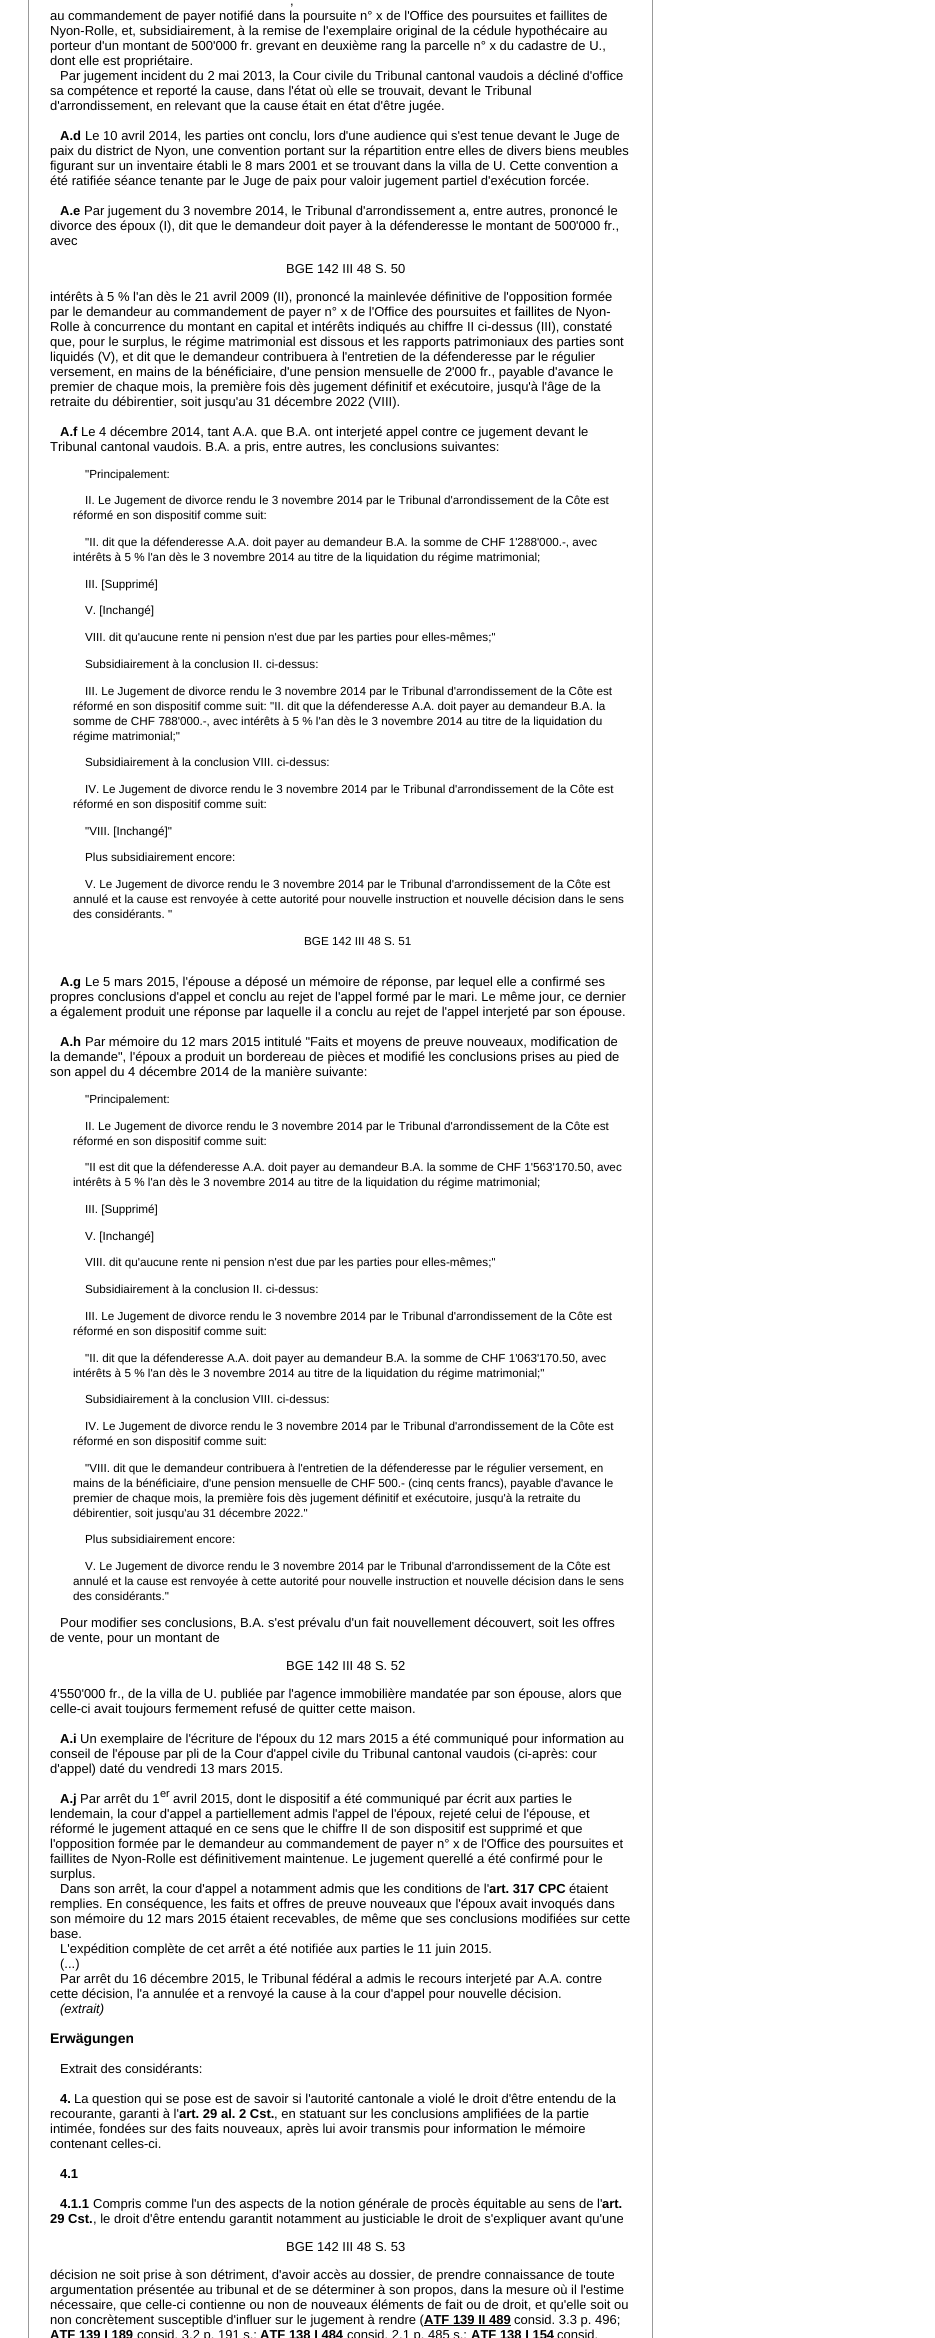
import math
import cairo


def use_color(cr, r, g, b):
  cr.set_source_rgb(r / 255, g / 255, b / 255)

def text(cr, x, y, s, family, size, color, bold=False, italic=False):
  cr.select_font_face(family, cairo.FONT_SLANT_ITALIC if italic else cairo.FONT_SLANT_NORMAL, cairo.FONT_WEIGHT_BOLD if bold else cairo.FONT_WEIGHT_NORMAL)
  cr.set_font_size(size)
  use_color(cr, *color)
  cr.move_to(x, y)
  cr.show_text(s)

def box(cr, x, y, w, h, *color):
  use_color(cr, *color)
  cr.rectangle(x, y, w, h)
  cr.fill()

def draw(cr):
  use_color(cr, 255, 255, 255)
  cr.paint()
  box(cr, 652, 0, 1, 2338, 153, 153, 153)
  box(cr, 28, 0, 1, 2338, 153, 153, 153)
  box(cr, 424, 2325, 87, 1, 0, 0, 0)
  text(cr, 290, 5, ",", "Liberation Sans", 13, (0, 0, 0))
  text(cr, 50, 20, "au commandement de payer notifié dans la poursuite n° x de l'Office des poursuites et faillites de", "Liberation Sans", 13, (0, 0, 0))
  text(cr, 50, 35, "Nyon-Rolle, et, subsidiairement, à la remise de l'exemplaire original de la cédule hypothécaire au", "Liberation Sans", 13, (0, 0, 0))
  text(cr, 50, 50, "porteur d'un montant de 500'000 fr. grevant en deuxième rang la parcelle n° x du cadastre de U.,", "Liberation Sans", 13, (0, 0, 0))
  text(cr, 50, 65, "dont elle est propriétaire.", "Liberation Sans", 13, (0, 0, 0))
  text(cr, 60, 80, "Par jugement incident du 2 mai 2013, la Cour civile du Tribunal cantonal vaudois a décliné d'office", "Liberation Sans", 13, (0, 0, 0))
  text(cr, 50, 95, "sa compétence et reporté la cause, dans l'état où elle se trouvait, devant le Tribunal", "Liberation Sans", 13, (0, 0, 0))
  text(cr, 50, 110, "d'arrondissement, en relevant que la cause était en état d'être jugée.", "Liberation Sans", 13, (0, 0, 0))
  text(cr, 60, 140, "A.d", "Liberation Sans", 13, (0, 0, 0), bold=True)
  text(cr, 85, 140, "Le 10 avril 2014, les parties ont conclu, lors d'une audience qui s'est tenue devant le Juge de", "Liberation Sans", 13, (0, 0, 0))
  text(cr, 50, 155, "paix du district de Nyon, une convention portant sur la répartition entre elles de divers biens meubles", "Liberation Sans", 13, (0, 0, 0))
  text(cr, 50, 170, "figurant sur un inventaire établi le 8 mars 2001 et se trouvant dans la villa de U. Cette convention a", "Liberation Sans", 13, (0, 0, 0))
  text(cr, 50, 185, "été ratifiée séance tenante par le Juge de paix pour valoir jugement partiel d'exécution forcée.", "Liberation Sans", 13, (0, 0, 0))
  text(cr, 60, 215, "A.e", "Liberation Sans", 13, (0, 0, 0), bold=True)
  text(cr, 84, 215, "Par jugement du 3 novembre 2014, le Tribunal d'arrondissement a, entre autres, prononcé le", "Liberation Sans", 13, (0, 0, 0))
  text(cr, 50, 230, "divorce des époux (I), dit que le demandeur doit payer à la défenderesse le montant de 500'000 fr.,", "Liberation Sans", 13, (0, 0, 0))
  text(cr, 50, 245, "avec", "Liberation Sans", 13, (0, 0, 0))
  text(cr, 286, 273, "BGE 142 III 48 S. 50", "Liberation Sans", 13, (0, 0, 0))
  text(cr, 50, 301, "intérêts à 5 % l'an dès le 21 avril 2009 (II), prononcé la mainlevée définitive de l'opposition formée", "Liberation Sans", 13, (0, 0, 0))
  text(cr, 50, 316, "par le demandeur au commandement de payer n° x de l'Office des poursuites et faillites de Nyon-", "Liberation Sans", 13, (0, 0, 0))
  text(cr, 50, 331, "Rolle à concurrence du montant en capital et intérêts indiqués au chiffre II ci-dessus (III), constaté", "Liberation Sans", 13, (0, 0, 0))
  text(cr, 50, 346, "que, pour le surplus, le régime matrimonial est dissous et les rapports patrimoniaux des parties sont", "Liberation Sans", 13, (0, 0, 0))
  text(cr, 50, 361, "liquidés (V), et dit que le demandeur contribuera à l'entretien de la défenderesse par le régulier", "Liberation Sans", 13, (0, 0, 0))
  text(cr, 50, 376, "versement, en mains de la bénéficiaire, d'une pension mensuelle de 2'000 fr., payable d'avance le", "Liberation Sans", 13, (0, 0, 0))
  text(cr, 50, 391, "premier de chaque mois, la première fois dès jugement définitif et exécutoire, jusqu'à l'âge de la", "Liberation Sans", 13, (0, 0, 0))
  text(cr, 50, 406, "retraite du débirentier, soit jusqu'au 31 décembre 2022 (VIII).", "Liberation Sans", 13, (0, 0, 0))
  text(cr, 60, 436, "A.f", "Liberation Sans", 13, (0, 0, 0), bold=True)
  text(cr, 81, 436, "Le 4 décembre 2014, tant A.A. que B.A. ont interjeté appel contre ce jugement devant le", "Liberation Sans", 13, (0, 0, 0))
  text(cr, 50, 451, "Tribunal cantonal vaudois. B.A. a pris, entre autres, les conclusions suivantes:", "Liberation Sans", 13, (0, 0, 0))
  text(cr, 85, 478, "\"Principalement:", "Liberation Sans", 11.7, (0, 0, 0))
  text(cr, 85, 504, "II. Le Jugement de divorce rendu le 3 novembre 2014 par le Tribunal d'arrondissement de la Côte est", "Liberation Sans", 11.7, (0, 0, 0))
  text(cr, 73, 519, "réformé en son dispositif comme suit:", "Liberation Sans", 11.7, (0, 0, 0))
  text(cr, 85, 546, "\"II. dit que la défenderesse A.A. doit payer au demandeur B.A. la somme de CHF 1'288'000.-, avec", "Liberation Sans", 11.7, (0, 0, 0))
  text(cr, 73, 561, "intérêts à 5 % l'an dès le 3 novembre 2014 au titre de la liquidation du régime matrimonial;", "Liberation Sans", 11.7, (0, 0, 0))
  text(cr, 85, 588, "III. [Supprimé]", "Liberation Sans", 11.7, (0, 0, 0))
  text(cr, 85, 614, "V. [Inchangé]", "Liberation Sans", 11.7, (0, 0, 0))
  text(cr, 85, 641, "VIII. dit qu'aucune rente ni pension n'est due par les parties pour elles-mêmes;\"", "Liberation Sans", 11.7, (0, 0, 0))
  text(cr, 85, 668, "Subsidiairement à la conclusion II. ci-dessus:", "Liberation Sans", 11.7, (0, 0, 0))
  text(cr, 85, 695, "III. Le Jugement de divorce rendu le 3 novembre 2014 par le Tribunal d'arrondissement de la Côte est", "Liberation Sans", 11.7, (0, 0, 0))
  text(cr, 73, 710, "réformé en son dispositif comme suit: \"II. dit que la défenderesse A.A. doit payer au demandeur B.A. la", "Liberation Sans", 11.7, (0, 0, 0))
  text(cr, 73, 725, "somme de CHF 788'000.-, avec intérêts à 5 % l'an dès le 3 novembre 2014 au titre de la liquidation du", "Liberation Sans", 11.7, (0, 0, 0))
  text(cr, 73, 740, "régime matrimonial;\"", "Liberation Sans", 11.7, (0, 0, 0))
  text(cr, 85, 766, "Subsidiairement à la conclusion VIII. ci-dessus:", "Liberation Sans", 11.7, (0, 0, 0))
  text(cr, 85, 793, "IV. Le Jugement de divorce rendu le 3 novembre 2014 par le Tribunal d'arrondissement de la Côte est", "Liberation Sans", 11.7, (0, 0, 0))
  text(cr, 73, 808, "réformé en son dispositif comme suit:", "Liberation Sans", 11.7, (0, 0, 0))
  text(cr, 85, 835, "\"VIII. [Inchangé]\"", "Liberation Sans", 11.7, (0, 0, 0))
  text(cr, 85, 861, "Plus subsidiairement encore:", "Liberation Sans", 11.7, (0, 0, 0))
  text(cr, 85, 888, "V. Le Jugement de divorce rendu le 3 novembre 2014 par le Tribunal d'arrondissement de la Côte est", "Liberation Sans", 11.7, (0, 0, 0))
  text(cr, 73, 903, "annulé et la cause est renvoyée à cette autorité pour nouvelle instruction et nouvelle décision dans le sens", "Liberation Sans", 11.7, (0, 0, 0))
  text(cr, 73, 918, "des considérants. \"", "Liberation Sans", 11.7, (0, 0, 0))
  text(cr, 304, 945, "BGE 142 III 48 S. 51", "Liberation Sans", 11.7, (0, 0, 0))
  text(cr, 60, 986, "A.g", "Liberation Sans", 13, (0, 0, 0), bold=True)
  text(cr, 85, 986, "Le 5 mars 2015, l'épouse a déposé un mémoire de réponse, par lequel elle a confirmé ses", "Liberation Sans", 13, (0, 0, 0))
  text(cr, 50, 1001, "propres conclusions d'appel et conclu au rejet de l'appel formé par le mari. Le même jour, ce dernier", "Liberation Sans", 13, (0, 0, 0))
  text(cr, 50, 1016, "a également produit une réponse par laquelle il a conclu au rejet de l'appel interjeté par son épouse.", "Liberation Sans", 13, (0, 0, 0))
  text(cr, 60, 1046, "A.h", "Liberation Sans", 13, (0, 0, 0), bold=True)
  text(cr, 85, 1046, "Par mémoire du 12 mars 2015 intitulé \"Faits et moyens de preuve nouveaux, modification de", "Liberation Sans", 13, (0, 0, 0))
  text(cr, 50, 1061, "la demande\", l'époux a produit un bordereau de pièces et modifié les conclusions prises au pied de", "Liberation Sans", 13, (0, 0, 0))
  text(cr, 50, 1076, "son appel du 4 décembre 2014 de la manière suivante:", "Liberation Sans", 13, (0, 0, 0))
  text(cr, 85, 1103, "\"Principalement:", "Liberation Sans", 11.7, (0, 0, 0))
  text(cr, 85, 1130, "II. Le Jugement de divorce rendu le 3 novembre 2014 par le Tribunal d'arrondissement de la Côte est", "Liberation Sans", 11.7, (0, 0, 0))
  text(cr, 73, 1145, "réformé en son dispositif comme suit:", "Liberation Sans", 11.7, (0, 0, 0))
  text(cr, 85, 1171, "\"II est dit que la défenderesse A.A. doit payer au demandeur B.A. la somme de CHF 1'563'170.50, avec", "Liberation Sans", 11.7, (0, 0, 0))
  text(cr, 73, 1186, "intérêts à 5 % l'an dès le 3 novembre 2014 au titre de la liquidation du régime matrimonial;", "Liberation Sans", 11.7, (0, 0, 0))
  text(cr, 85, 1213, "III. [Supprimé]", "Liberation Sans", 11.7, (0, 0, 0))
  text(cr, 85, 1240, "V. [Inchangé]", "Liberation Sans", 11.7, (0, 0, 0))
  text(cr, 85, 1266, "VIII. dit qu'aucune rente ni pension n'est due par les parties pour elles-mêmes;\"", "Liberation Sans", 11.7, (0, 0, 0))
  text(cr, 85, 1293, "Subsidiairement à la conclusion II. ci-dessus:", "Liberation Sans", 11.7, (0, 0, 0))
  text(cr, 85, 1320, "III. Le Jugement de divorce rendu le 3 novembre 2014 par le Tribunal d'arrondissement de la Côte est", "Liberation Sans", 11.7, (0, 0, 0))
  text(cr, 73, 1335, "réformé en son dispositif comme suit:", "Liberation Sans", 11.7, (0, 0, 0))
  text(cr, 85, 1362, "\"II. dit que la défenderesse A.A. doit payer au demandeur B.A. la somme de CHF 1'063'170.50, avec", "Liberation Sans", 11.7, (0, 0, 0))
  text(cr, 73, 1377, "intérêts à 5 % l'an dès le 3 novembre 2014 au titre de la liquidation du régime matrimonial;\"", "Liberation Sans", 11.7, (0, 0, 0))
  text(cr, 85, 1403, "Subsidiairement à la conclusion VIII. ci-dessus:", "Liberation Sans", 11.7, (0, 0, 0))
  text(cr, 85, 1430, "IV. Le Jugement de divorce rendu le 3 novembre 2014 par le Tribunal d'arrondissement de la Côte est", "Liberation Sans", 11.7, (0, 0, 0))
  text(cr, 73, 1445, "réformé en son dispositif comme suit:", "Liberation Sans", 11.7, (0, 0, 0))
  text(cr, 85, 1472, "\"VIII. dit que le demandeur contribuera à l'entretien de la défenderesse par le régulier versement, en", "Liberation Sans", 11.7, (0, 0, 0))
  text(cr, 73, 1487, "mains de la bénéficiaire, d'une pension mensuelle de CHF 500.- (cinq cents francs), payable d'avance le", "Liberation Sans", 11.7, (0, 0, 0))
  text(cr, 73, 1502, "premier de chaque mois, la première fois dès jugement définitif et exécutoire, jusqu'à la retraite du", "Liberation Sans", 11.7, (0, 0, 0))
  text(cr, 73, 1517, "débirentier, soit jusqu'au 31 décembre 2022.\"", "Liberation Sans", 11.7, (0, 0, 0))
  text(cr, 85, 1543, "Plus subsidiairement encore:", "Liberation Sans", 11.7, (0, 0, 0))
  text(cr, 85, 1570, "V. Le Jugement de divorce rendu le 3 novembre 2014 par le Tribunal d'arrondissement de la Côte est", "Liberation Sans", 11.7, (0, 0, 0))
  text(cr, 73, 1585, "annulé et la cause est renvoyée à cette autorité pour nouvelle instruction et nouvelle décision dans le sens", "Liberation Sans", 11.7, (0, 0, 0))
  text(cr, 73, 1600, "des considérants.\"", "Liberation Sans", 11.7, (0, 0, 0))
  text(cr, 60, 1627, "Pour modifier ses conclusions, B.A. s'est prévalu d'un fait nouvellement découvert, soit les offres", "Liberation Sans", 13, (0, 0, 0))
  text(cr, 50, 1642, "de vente, pour un montant de", "Liberation Sans", 13, (0, 0, 0))
  text(cr, 286, 1670, "BGE 142 III 48 S. 52", "Liberation Sans", 13, (0, 0, 0))
  text(cr, 50, 1698, "4'550'000 fr., de la villa de U. publiée par l'agence immobilière mandatée par son épouse, alors que", "Liberation Sans", 13, (0, 0, 0))
  text(cr, 50, 1713, "celle-ci avait toujours fermement refusé de quitter cette maison.", "Liberation Sans", 13, (0, 0, 0))
  text(cr, 60, 1743, "A.i", "Liberation Sans", 13, (0, 0, 0), bold=True)
  text(cr, 80, 1743, "Un exemplaire de l'écriture de l'époux du 12 mars 2015 a été communiqué pour information au", "Liberation Sans", 13, (0, 0, 0))
  text(cr, 50, 1758, "conseil de l'épouse par pli de la Cour d'appel civile du Tribunal cantonal vaudois (ci-après: cour", "Liberation Sans", 13, (0, 0, 0))
  text(cr, 50, 1773, "d'appel) daté du vendredi 13 mars 2015.", "Liberation Sans", 13, (0, 0, 0))
  text(cr, 60, 1803, "A.j", "Liberation Sans", 13, (0, 0, 0), bold=True)
  text(cr, 80, 1803, "Par arrêt du 1", "Liberation Sans", 13, (0, 0, 0))
  text(cr, 160, 1797, "er", "Liberation Sans", 11, (0, 0, 0))
  text(cr, 173, 1803, "avril 2015, dont le dispositif a été communiqué par écrit aux parties le", "Liberation Sans", 13, (0, 0, 0))
  text(cr, 50, 1818, "lendemain, la cour d'appel a partiellement admis l'appel de l'époux, rejeté celui de l'épouse, et", "Liberation Sans", 13, (0, 0, 0))
  text(cr, 50, 1833, "réformé le jugement attaqué en ce sens que le chiffre II de son dispositif est supprimé et que", "Liberation Sans", 13, (0, 0, 0))
  text(cr, 50, 1848, "l'opposition formée par le demandeur au commandement de payer n° x de l'Office des poursuites et", "Liberation Sans", 13, (0, 0, 0))
  text(cr, 50, 1863, "faillites de Nyon-Rolle est définitivement maintenue. Le jugement querellé a été confirmé pour le", "Liberation Sans", 13, (0, 0, 0))
  text(cr, 50, 1878, "surplus.", "Liberation Sans", 13, (0, 0, 0))
  text(cr, 60, 1893, "Dans son arrêt, la cour d'appel a notamment admis que les conditions de l'", "Liberation Sans", 13, (0, 0, 0))
  text(cr, 489, 1893, "art. 317 CPC", "Liberation Sans", 13, (0, 0, 0), bold=True)
  text(cr, 569, 1893, "étaient", "Liberation Sans", 13, (0, 0, 0))
  text(cr, 50, 1908, "remplies. En conséquence, les faits et offres de preuve nouveaux que l'époux avait invoqués dans", "Liberation Sans", 13, (0, 0, 0))
  text(cr, 50, 1923, "son mémoire du 12 mars 2015 étaient recevables, de même que ses conclusions modifiées sur cette", "Liberation Sans", 13, (0, 0, 0))
  text(cr, 50, 1938, "base.", "Liberation Sans", 13, (0, 0, 0))
  text(cr, 60, 1953, "L'expédition complète de cet arrêt a été notifiée aux parties le 11 juin 2015.", "Liberation Sans", 13, (0, 0, 0))
  text(cr, 60, 1968, "(...)", "Liberation Sans", 13, (0, 0, 0))
  text(cr, 60, 1983, "Par arrêt du 16 décembre 2015, le Tribunal fédéral a admis le recours interjeté par A.A. contre", "Liberation Sans", 13, (0, 0, 0))
  text(cr, 50, 1998, "cette décision, l'a annulée et a renvoyé la cause à la cour d'appel pour nouvelle décision.", "Liberation Sans", 13, (0, 0, 0))
  text(cr, 60, 2013, "(extrait)", "Liberation Sans", 13, (0, 0, 0), italic=True)
  text(cr, 50, 2043, "Erwägungen", "Liberation Sans", 14, (0, 0, 0), bold=True)
  text(cr, 60, 2073, "Extrait des considérants:", "Liberation Sans", 13, (0, 0, 0))
  text(cr, 60, 2103, "4.", "Liberation Sans", 13, (0, 0, 0), bold=True)
  text(cr, 74, 2103, "La question qui se pose est de savoir si l'autorité cantonale a violé le droit d'être entendu de la", "Liberation Sans", 13, (0, 0, 0))
  text(cr, 50, 2118, "recourante, garanti à l'", "Liberation Sans", 13, (0, 0, 0))
  text(cr, 179, 2118, "art. 29 al. 2 Cst.", "Liberation Sans", 13, (0, 0, 0), bold=True)
  text(cr, 274, 2118, ", en statuant sur les conclusions amplifiées de la partie", "Liberation Sans", 13, (0, 0, 0))
  text(cr, 50, 2133, "intimée, fondées sur des faits nouveaux, après lui avoir transmis pour information le mémoire", "Liberation Sans", 13, (0, 0, 0))
  text(cr, 50, 2148, "contenant celles-ci.", "Liberation Sans", 13, (0, 0, 0))
  text(cr, 60, 2178, "4.1", "Liberation Sans", 13, (0, 0, 0), bold=True)
  text(cr, 60, 2208, "4.1.1", "Liberation Sans", 13, (0, 0, 0), bold=True)
  text(cr, 93, 2208, "Compris comme l'un des aspects de la notion générale de procès équitable au sens de l'", "Liberation Sans", 13, (0, 0, 0))
  text(cr, 602, 2208, "art.", "Liberation Sans", 13, (0, 0, 0), bold=True)
  text(cr, 50, 2223, "29 Cst.", "Liberation Sans", 13, (0, 0, 0), bold=True)
  text(cr, 93, 2223, ", le droit d'être entendu garantit notamment au justiciable le droit de s'expliquer avant qu'une", "Liberation Sans", 13, (0, 0, 0))
  text(cr, 286, 2251, "BGE 142 III 48 S. 53", "Liberation Sans", 13, (0, 0, 0))
  text(cr, 50, 2279, "décision ne soit prise à son détriment, d'avoir accès au dossier, de prendre connaissance de toute", "Liberation Sans", 13, (0, 0, 0))
  text(cr, 50, 2294, "argumentation présentée au tribunal et de se déterminer à son propos, dans la mesure où il l'estime", "Liberation Sans", 13, (0, 0, 0))
  text(cr, 50, 2309, "nécessaire, que celle-ci contienne ou non de nouveaux éléments de fait ou de droit, et qu'elle soit ou", "Liberation Sans", 13, (0, 0, 0))
  text(cr, 50, 2324, "non concrètement susceptible d'influer sur le jugement à rendre (", "Liberation Sans", 13, (0, 0, 0))
  text(cr, 424, 2324, "ATF 139 II 489", "Liberation Sans", 13, (0, 0, 0), bold=True)
  text(cr, 514, 2324, "consid. 3.3 p. 496;", "Liberation Sans", 13, (0, 0, 0))
  text(cr, 50, 2339, "ATF 139 I 189", "Liberation Sans", 13, (0, 0, 0), bold=True)
  text(cr, 137, 2339, "consid. 3.2 p. 191 s.;", "Liberation Sans", 13, (0, 0, 0))
  text(cr, 260, 2339, "ATF 138 I 484", "Liberation Sans", 13, (0, 0, 0), bold=True)
  text(cr, 347, 2339, "consid. 2.1 p. 485 s.;", "Liberation Sans", 13, (0, 0, 0))
  text(cr, 471, 2339, "ATF 138 I 154", "Liberation Sans", 13, (0, 0, 0), bold=True)
  text(cr, 557, 2339, "consid.", "Liberation Sans", 13, (0, 0, 0))


surface = cairo.ImageSurface(cairo.FORMAT_RGB24, 935, 2338)
cr = cairo.Context(surface)
options = cairo.FontOptions()
options.set_hint_metrics(cairo.HINT_METRICS_OFF)
options.set_hint_style(cairo.HINT_STYLE_NONE)
cr.set_font_options(options)
cr.set_miter_limit(4)
draw(cr)
surface.write_to_png("out.png")
